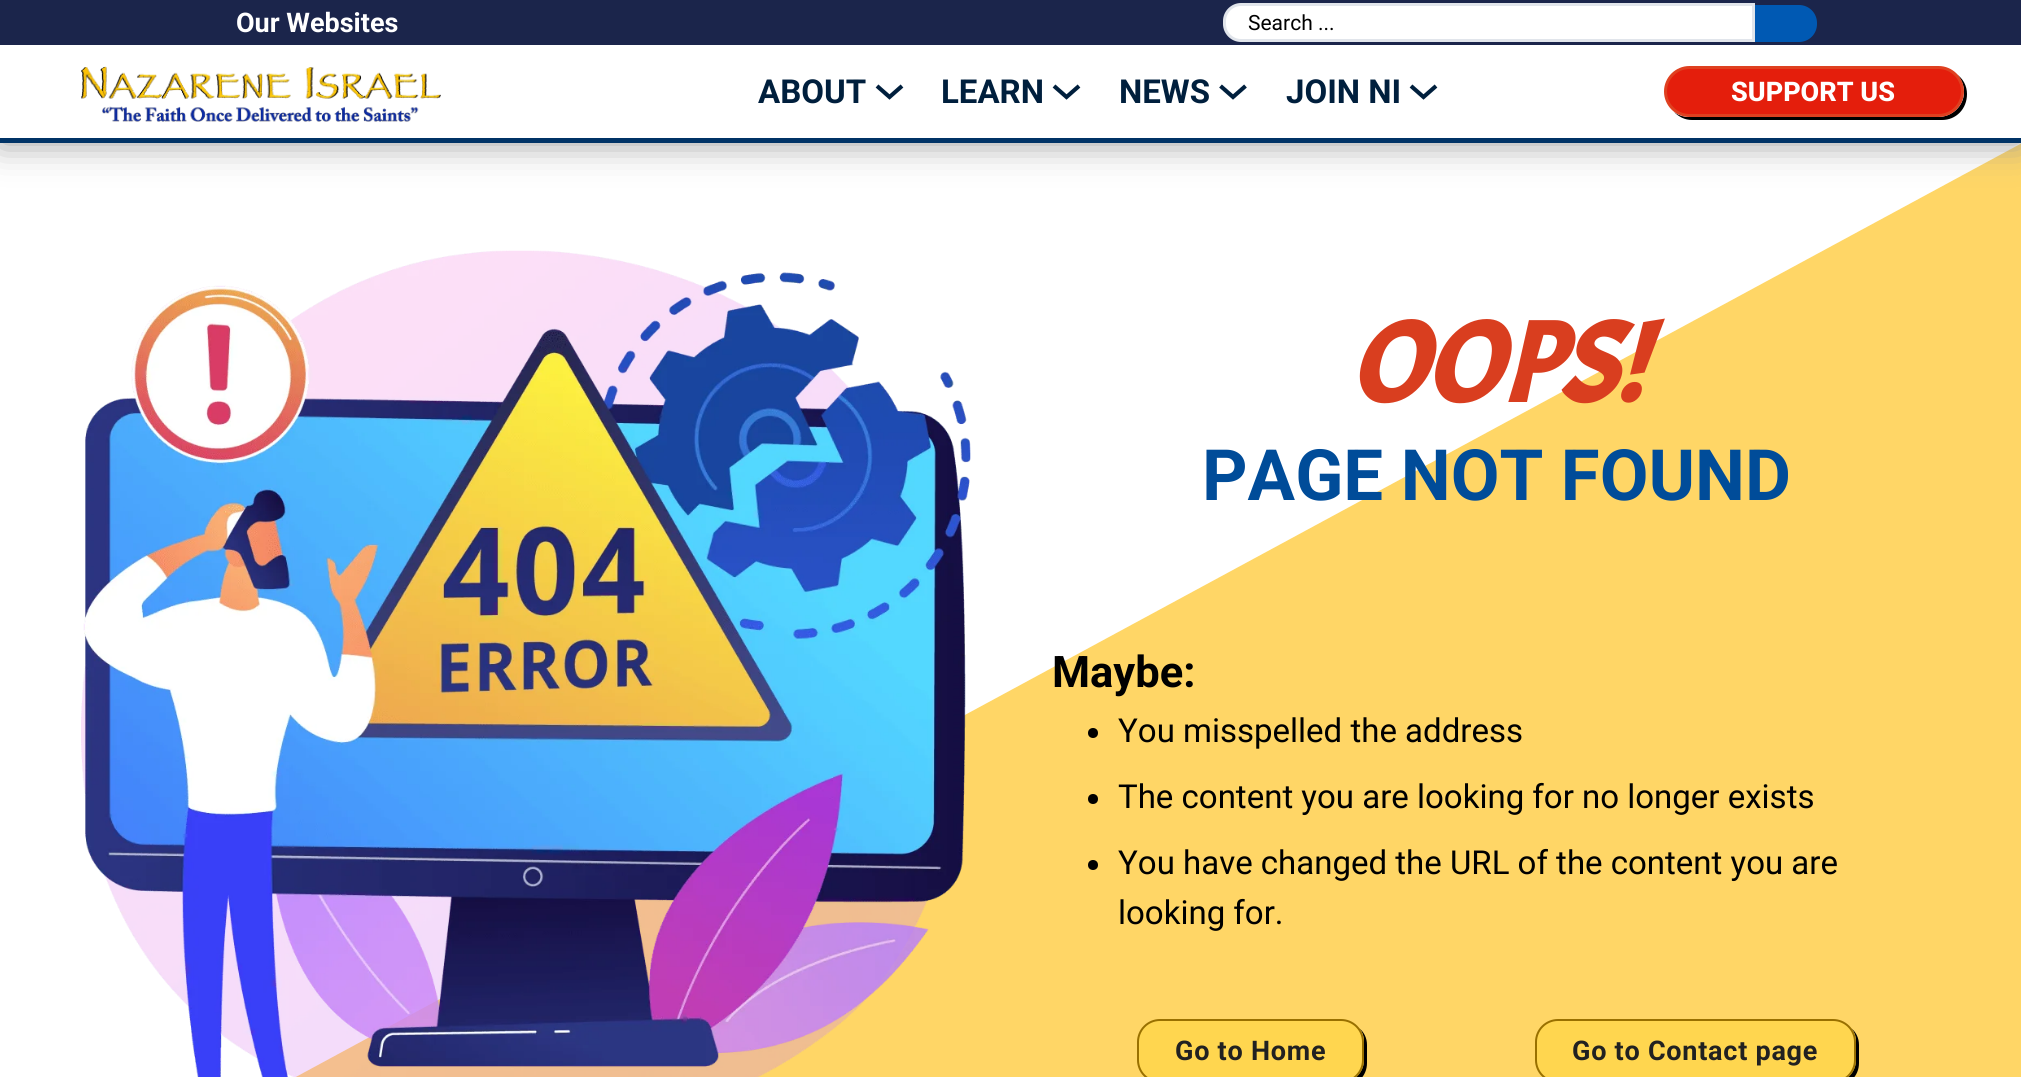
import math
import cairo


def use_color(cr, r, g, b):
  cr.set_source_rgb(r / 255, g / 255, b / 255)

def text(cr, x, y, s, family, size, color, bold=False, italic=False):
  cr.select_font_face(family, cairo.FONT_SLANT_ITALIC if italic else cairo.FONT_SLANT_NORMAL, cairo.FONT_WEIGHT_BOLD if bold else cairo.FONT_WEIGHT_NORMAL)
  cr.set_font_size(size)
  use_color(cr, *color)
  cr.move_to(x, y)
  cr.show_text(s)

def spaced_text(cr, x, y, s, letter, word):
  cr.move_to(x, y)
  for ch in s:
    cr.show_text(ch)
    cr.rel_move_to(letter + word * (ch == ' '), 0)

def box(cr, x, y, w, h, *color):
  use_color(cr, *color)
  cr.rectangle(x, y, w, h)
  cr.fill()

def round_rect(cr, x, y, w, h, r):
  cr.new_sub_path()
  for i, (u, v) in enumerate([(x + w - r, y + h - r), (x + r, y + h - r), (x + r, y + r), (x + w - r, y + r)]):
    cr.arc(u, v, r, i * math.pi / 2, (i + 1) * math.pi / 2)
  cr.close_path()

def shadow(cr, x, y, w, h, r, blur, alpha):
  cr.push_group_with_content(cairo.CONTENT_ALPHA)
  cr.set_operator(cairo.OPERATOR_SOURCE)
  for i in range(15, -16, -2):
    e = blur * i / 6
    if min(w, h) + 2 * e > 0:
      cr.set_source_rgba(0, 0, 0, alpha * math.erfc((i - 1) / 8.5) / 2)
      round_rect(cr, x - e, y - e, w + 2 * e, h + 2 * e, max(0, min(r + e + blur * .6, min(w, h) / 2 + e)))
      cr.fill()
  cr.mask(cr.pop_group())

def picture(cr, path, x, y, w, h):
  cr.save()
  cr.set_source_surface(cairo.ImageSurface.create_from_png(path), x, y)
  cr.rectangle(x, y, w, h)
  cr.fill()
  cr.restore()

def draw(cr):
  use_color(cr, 255, 255, 255)
  cr.paint()
  use_color(cr, 255, 214, 102)
  cr.set_fill_rule(cairo.FILL_RULE_EVEN_ODD)
  cr.new_path()
  cr.move_to(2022, 143)
  cr.line_to(0, 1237)
  cr.line_to(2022, 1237)
  cr.close_path()
  cr.fill()
  use_color(cr, 153, 153, 153)
  shadow(cr, 0, 0, 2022, 143, 0, 18, 1)
  box(cr, 0, 45, 2021, 93, 255, 255, 255)
  box(cr, 0, 138, 2021, 5, 0, 51, 102)
  box(cr, 0, 0, 2021, 45, 27, 37, 75)
  use_color(cr, 255, 255, 255)
  cr.new_path()
  cr.move_to(1241, 4.5)
  cr.line_to(1753.5, 4.5)
  cr.line_to(1753.5, 40.5)
  cr.line_to(1241, 40.5)
  cr.curve_to(1232, 40.5, 1224.5, 33, 1224.5, 24)
  cr.line_to(1224.5, 21)
  cr.curve_to(1224.5, 12, 1232, 4.5, 1241, 4.5)
  cr.close_path()
  cr.fill_preserve()
  use_color(cr, 225, 229, 235)
  cr.set_line_width(3)
  cr.stroke()
  use_color(cr, 0, 89, 179)
  cr.new_path()
  cr.move_to(1755, 5)
  cr.line_to(1799, 5)
  cr.curve_to(1809, 5, 1817, 13, 1817, 23)
  cr.line_to(1817, 24)
  cr.curve_to(1817, 34, 1809, 42, 1799, 42)
  cr.line_to(1755, 42)
  cr.close_path()
  cr.fill()
  picture(cr, "img_01.png", 81, 66, 360, 56)
  cr.new_path()
  cr.move_to(877, 86)
  cr.line_to(889.5, 97)
  cr.line_to(902, 86)
  use_color(cr, 0, 31, 61)
  cr.set_line_width(4.1)
  cr.stroke()
  cr.new_path()
  cr.move_to(1054, 86)
  cr.line_to(1066.5, 97)
  cr.line_to(1079, 86)
  cr.stroke()
  cr.new_path()
  cr.move_to(1220.5, 86)
  cr.line_to(1233, 97)
  cr.line_to(1245.5, 86)
  cr.stroke()
  cr.new_path()
  cr.move_to(1411, 86)
  cr.line_to(1423.5, 97)
  cr.line_to(1436, 86)
  cr.stroke()
  use_color(cr, 0, 0, 0)
  cr.set_fill_rule(cairo.FILL_RULE_WINDING)
  cr.new_path()
  cr.move_to(1674, 112)
  cr.curve_to(1679, 117, 1685, 120, 1692, 120)
  cr.line_to(1942, 120)
  cr.curve_to(1956, 120, 1967, 109, 1967, 94)
  cr.curve_to(1967, 86, 1963, 78, 1956, 74)
  cr.curve_to(1961, 78, 1964, 85, 1964, 92)
  cr.curve_to(1964, 106, 1952, 117, 1938, 117)
  cr.line_to(1689, 117)
  cr.curve_to(1683, 117, 1678, 115, 1674, 112)
  cr.close_path()
  cr.fill()
  use_color(cr, 228, 30, 12)
  round_rect(cr, 1665.5, 67.5, 297, 48, 24)
  cr.fill_preserve()
  use_color(cr, 223, 64, 32)
  cr.set_line_width(3)
  cr.stroke()
  picture(cr, "img_02.png", 81, 250, 890, 827)
  use_color(cr, 0, 0, 0)
  cr.arc(1093, 733, 5, 0, 2 * math.pi)
  cr.fill()
  cr.arc(1093, 799, 5, 0, 2 * math.pi)
  cr.fill()
  cr.arc(1093, 865, 5, 0, 2 * math.pi)
  cr.fill()
  cr.new_path()
  cr.move_to(1146, 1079)
  cr.curve_to(1150, 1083, 1156, 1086, 1163, 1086)
  cr.line_to(1344, 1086)
  cr.curve_to(1357, 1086, 1367, 1076, 1367, 1063)
  cr.line_to(1367, 1045)
  cr.curve_to(1367, 1038, 1364, 1032, 1359, 1028)
  cr.curve_to(1362, 1031, 1364, 1036, 1364, 1041)
  cr.line_to(1364, 1060)
  cr.curve_to(1364, 1073, 1353, 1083, 1341, 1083)
  cr.line_to(1160, 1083)
  cr.curve_to(1154, 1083, 1150, 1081, 1146, 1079)
  cr.close_path()
  cr.fill()
  use_color(cr, 255, 214, 79)
  round_rect(cr, 1138, 1020, 225, 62, 22)
  cr.fill_preserve()
  use_color(cr, 153, 112, 0)
  cr.set_line_width(2)
  cr.stroke()
  use_color(cr, 0, 0, 0)
  cr.new_path()
  cr.move_to(1545, 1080)
  cr.curve_to(1549, 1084, 1555, 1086, 1561, 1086)
  cr.line_to(1836, 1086)
  cr.curve_to(1849, 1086, 1859, 1076, 1859, 1063)
  cr.line_to(1859, 1045)
  cr.curve_to(1859, 1038, 1856, 1032, 1851, 1028)
  cr.curve_to(1854, 1031, 1856, 1036, 1856, 1041)
  cr.line_to(1856, 1060)
  cr.curve_to(1856, 1073, 1845, 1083, 1833, 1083)
  cr.line_to(1557, 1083)
  cr.curve_to(1553, 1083, 1549, 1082, 1545, 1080)
  cr.close_path()
  cr.fill()
  use_color(cr, 255, 214, 79)
  round_rect(cr, 1536, 1020, 319, 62, 22)
  cr.fill_preserve()
  use_color(cr, 153, 112, 0)
  cr.stroke()
  text(cr, 236, 32, "Our Websites", "Roboto", 27, (255, 255, 255), bold=True)
  text(cr, 1248, 30, "Search ...", "Roboto", 21, (0, 0, 0))
  text(cr, 758, 103, "ABOUT", "Roboto", 33, (0, 31, 61), bold=True)
  text(cr, 941, 103, "LEARN", "Roboto", 33, (0, 31, 61), bold=True)
  text(cr, 1119, 103, "NEWS", "Roboto", 33, (0, 31, 61), bold=True)
  text(cr, 1286, 103, "JOIN NI", "Roboto", 33, (0, 31, 61), bold=True)
  text(cr, 1731, 101, "SUPPORT US", "Roboto ExtraBold", 27, (255, 255, 255))
  text(cr, 1349, 402, "OOPS!", "Acme", 114, (217, 62, 31), bold=True, italic=True)
  text(cr, 1202, 500, "PAGE NOT FOUND", "Roboto", 70.75, (0, 76, 153), bold=True)
  text(cr, 1052, 687, "Maybe:", "Roboto", 43.5, (0, 0, 0), bold=True)
  text(cr, 1118, 742, "You misspelled the address", "Roboto", 33, (0, 0, 0))
  text(cr, 1118, 808, "The content you are looking for no longer exists", "Roboto", 33, (0, 0, 0))
  text(cr, 1118, 874, "You have changed the URL of the content you are", "Roboto", 33, (0, 0, 0))
  text(cr, 1118, 924, "looking for.", "Roboto", 33, (0, 0, 0))
  cr.select_font_face("Roboto", cairo.FONT_SLANT_NORMAL, cairo.FONT_WEIGHT_BOLD)
  cr.set_font_size(27)
  use_color(cr, 33, 33, 33)
  spaced_text(cr, 1175, 1060, "Go to Home", 0.75, 0)
  spaced_text(cr, 1572, 1060, "Go to Contact page", 0.75, 0)


surface = cairo.ImageSurface(cairo.FORMAT_RGB24, 2021, 1077)
cr = cairo.Context(surface)
options = cairo.FontOptions()
options.set_hint_metrics(cairo.HINT_METRICS_OFF)
options.set_hint_style(cairo.HINT_STYLE_NONE)
cr.set_font_options(options)
cr.set_miter_limit(4)
draw(cr)
surface.write_to_png("out.png")
